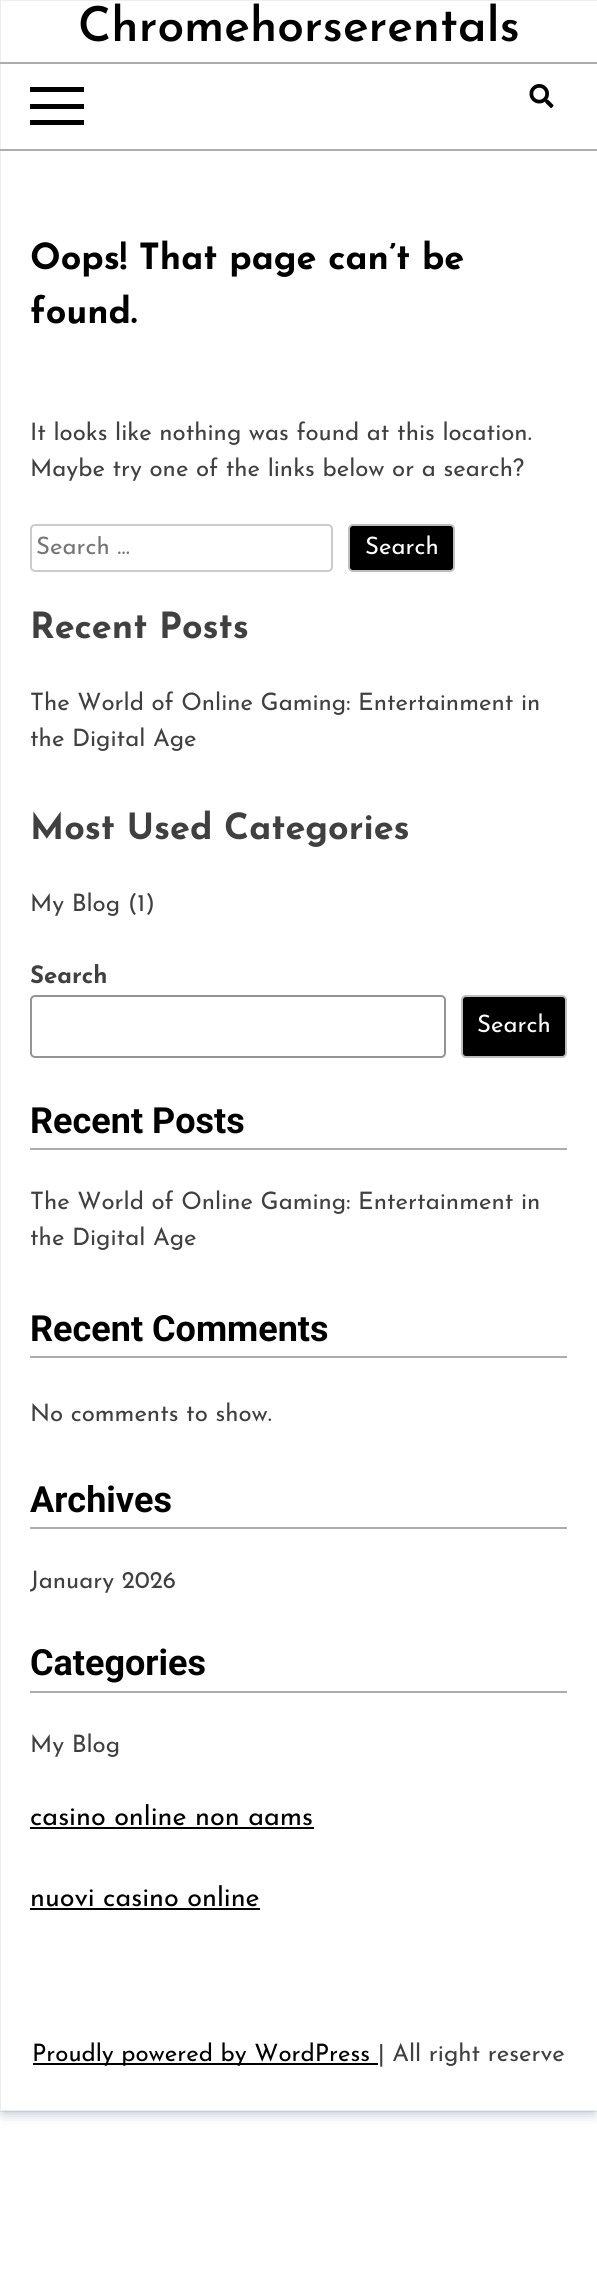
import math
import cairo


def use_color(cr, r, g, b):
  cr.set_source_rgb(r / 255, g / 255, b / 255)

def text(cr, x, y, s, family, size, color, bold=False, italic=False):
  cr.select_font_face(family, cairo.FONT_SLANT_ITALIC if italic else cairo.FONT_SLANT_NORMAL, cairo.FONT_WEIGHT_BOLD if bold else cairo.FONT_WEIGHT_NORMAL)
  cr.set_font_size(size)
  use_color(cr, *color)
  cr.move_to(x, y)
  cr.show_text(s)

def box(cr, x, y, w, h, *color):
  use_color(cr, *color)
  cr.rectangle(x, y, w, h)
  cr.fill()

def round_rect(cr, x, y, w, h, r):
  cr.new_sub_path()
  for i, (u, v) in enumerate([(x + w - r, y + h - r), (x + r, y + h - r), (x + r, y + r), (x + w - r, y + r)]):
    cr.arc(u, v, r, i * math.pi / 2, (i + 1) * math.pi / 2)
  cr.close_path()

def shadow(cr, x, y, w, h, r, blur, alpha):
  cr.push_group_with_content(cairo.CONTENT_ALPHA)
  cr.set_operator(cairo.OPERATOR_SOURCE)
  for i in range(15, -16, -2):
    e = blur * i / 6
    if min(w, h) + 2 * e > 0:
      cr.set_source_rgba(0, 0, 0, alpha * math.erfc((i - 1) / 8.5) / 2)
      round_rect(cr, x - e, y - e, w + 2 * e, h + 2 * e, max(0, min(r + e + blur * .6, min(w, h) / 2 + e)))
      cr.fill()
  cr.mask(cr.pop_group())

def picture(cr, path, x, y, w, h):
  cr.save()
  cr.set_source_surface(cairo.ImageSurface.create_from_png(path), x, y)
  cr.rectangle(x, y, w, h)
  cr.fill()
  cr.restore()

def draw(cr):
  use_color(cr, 255, 255, 255)
  cr.paint()
  cr.rectangle(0, 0, 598, 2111)
  use_color(cr, 235, 237, 240)
  cr.stroke()
  cr.save()
  cr.set_fill_rule(cairo.FILL_RULE_EVEN_ODD)
  cr.new_path()
  cr.move_to(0, 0)
  cr.line_to(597, 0)
  cr.line_to(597, 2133)
  cr.line_to(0, 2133)
  cr.close_path()
  cr.move_to(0, 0)
  cr.line_to(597, 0)
  cr.line_to(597, 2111)
  cr.line_to(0, 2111)
  cr.close_path()
  cr.clip()
  use_color(cr, 9, 30, 66)
  shadow(cr, 3, 9, 591, 2105, 0, 6, 0.25)
  cr.restore()
  box(cr, 0, 62, 597, 2, 173, 173, 173)
  box(cr, 0, 149, 597, 2, 173, 173, 173)
  box(cr, 30, 87, 54, 5, 0, 0, 0)
  box(cr, 30, 104, 54, 5, 0, 0, 0)
  box(cr, 30, 120, 54, 5, 0, 0, 0)
  picture(cr, "img_01.png", 529, 84, 25, 24)
  round_rect(cr, 31, 525, 301, 46, 4)
  use_color(cr, 204, 204, 204)
  cr.stroke()
  use_color(cr, 0, 0, 0)
  round_rect(cr, 349, 525, 105, 46, 4)
  cr.fill_preserve()
  use_color(cr, 190, 190, 190)
  cr.stroke()
  round_rect(cr, 31, 996, 414, 61, 4)
  use_color(cr, 148, 148, 148)
  cr.stroke()
  use_color(cr, 0, 0, 0)
  round_rect(cr, 462, 996, 104, 61, 4)
  cr.fill_preserve()
  use_color(cr, 190, 190, 190)
  cr.stroke()
  box(cr, 30, 1148, 537, 2, 173, 173, 173)
  box(cr, 30, 1356, 537, 2, 173, 173, 173)
  box(cr, 30, 1527, 537, 2, 173, 173, 173)
  box(cr, 30, 1691, 537, 2, 173, 173, 173)
  box(cr, 30, 1827, 284, 2, 0, 0, 0)
  box(cr, 30, 1908, 230, 2, 0, 0, 0)
  box(cr, 33, 2063, 345, 2, 0, 0, 0)
  text(cr, 78, 41, "Chromehorserentals", "Josefin Sans SemiBold", 48, (0, 0, 0))
  text(cr, 30, 269, "Oops! That page can’t be", "Josefin Sans", 36, (0, 0, 0), bold=True)
  text(cr, 30, 323, "found.", "Josefin Sans", 36, (0, 0, 0), bold=True)
  text(cr, 30, 440, "It looks like nothing was found at this location.", "Josefin Sans", 24, (64, 64, 64))
  text(cr, 30, 476, "Maybe try one of the links below or a search?", "Josefin Sans", 24, (64, 64, 64))
  cr.save()
  cr.rectangle(36, 536, 269, 24)
  cr.clip()
  text(cr, 36, 554, "Search …", "Josefin Sans", 24, (117, 117, 117))
  cr.restore()
  text(cr, 365, 554, "Search", "Josefin Sans", 24, (255, 255, 255))
  text(cr, 30, 638, "Recent Posts", "Josefin Sans", 36, (64, 64, 64), bold=True)
  text(cr, 30, 710, "The World of Online Gaming: Entertainment in", "Josefin Sans", 24, (64, 64, 64))
  text(cr, 30, 746, "the Digital Age", "Josefin Sans", 24, (64, 64, 64))
  text(cr, 30, 839, "Most Used Categories", "Josefin Sans", 36, (64, 64, 64), bold=True)
  text(cr, 30, 911, "My Blog (1)", "Josefin Sans", 24, (64, 64, 64))
  text(cr, 30, 983, "Search", "Josefin Sans", 24, (64, 64, 64), bold=True)
  text(cr, 477, 1032, "Search", "Josefin Sans", 24, (255, 255, 255))
  text(cr, 30, 1133, "Recent Posts", "Roboto", 36, (0, 0, 0), bold=True)
  text(cr, 30, 1209, "The World of Online Gaming: Entertainment in", "Josefin Sans", 24, (64, 64, 64))
  text(cr, 30, 1245, "the Digital Age", "Josefin Sans", 24, (64, 64, 64))
  text(cr, 30, 1341, "Recent Comments", "Roboto", 36, (0, 0, 0), bold=True)
  text(cr, 30, 1421, "No comments to show.", "Josefin Sans", 24, (64, 64, 64))
  text(cr, 30, 1512, "Archives", "Roboto", 36, (0, 0, 0), bold=True)
  text(cr, 30, 1588, "January 2026", "Josefin Sans", 24, (64, 64, 64))
  text(cr, 30, 1675, "Categories", "Roboto", 36, (0, 0, 0), bold=True)
  text(cr, 30, 1752, "My Blog", "Josefin Sans", 24, (64, 64, 64))
  text(cr, 30, 1825, "casino online non aams", "Josefin Sans", 27, (0, 0, 0))
  text(cr, 30, 1906, "nuovi casino online", "Josefin Sans", 27, (0, 0, 0))
  text(cr, 32, 2061, "Proudly powered by WordPress", "Josefin Sans", 24, (0, 0, 0))
  text(cr, 378, 2061, "| All right reserve", "Josefin Sans", 24, (64, 64, 64))


surface = cairo.ImageSurface(cairo.FORMAT_RGB24, 597, 2281)
cr = cairo.Context(surface)
options = cairo.FontOptions()
options.set_hint_metrics(cairo.HINT_METRICS_OFF)
options.set_hint_style(cairo.HINT_STYLE_NONE)
cr.set_font_options(options)
cr.set_miter_limit(4)
draw(cr)
surface.write_to_png("out.png")
